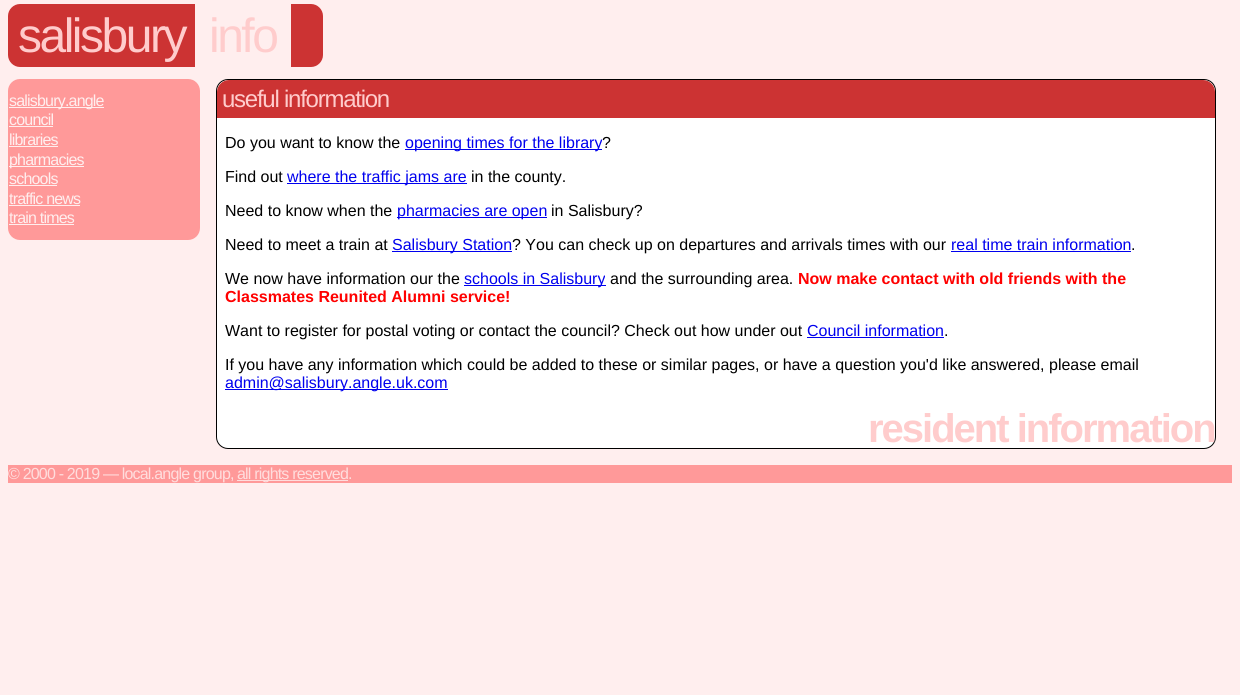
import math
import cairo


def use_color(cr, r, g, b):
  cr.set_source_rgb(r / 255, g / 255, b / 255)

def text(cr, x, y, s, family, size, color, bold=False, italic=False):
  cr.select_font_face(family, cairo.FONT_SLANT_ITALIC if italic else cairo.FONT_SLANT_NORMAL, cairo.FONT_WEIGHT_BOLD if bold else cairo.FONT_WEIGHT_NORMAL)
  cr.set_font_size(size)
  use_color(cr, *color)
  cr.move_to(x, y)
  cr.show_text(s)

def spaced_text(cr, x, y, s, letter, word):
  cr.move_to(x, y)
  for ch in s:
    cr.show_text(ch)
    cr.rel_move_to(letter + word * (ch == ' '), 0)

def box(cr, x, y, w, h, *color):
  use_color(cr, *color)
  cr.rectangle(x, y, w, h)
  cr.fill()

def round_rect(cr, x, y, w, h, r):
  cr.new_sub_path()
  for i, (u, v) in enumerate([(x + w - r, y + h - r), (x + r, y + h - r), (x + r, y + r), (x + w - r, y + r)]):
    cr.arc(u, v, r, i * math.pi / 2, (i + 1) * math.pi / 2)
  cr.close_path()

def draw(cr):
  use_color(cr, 255, 238, 238)
  cr.paint()
  use_color(cr, 204, 51, 51)
  cr.new_path()
  cr.move_to(20, 4)
  cr.line_to(195, 4)
  cr.line_to(195, 67)
  cr.line_to(20, 67)
  cr.curve_to(13.5, 67, 8, 61.5, 8, 55)
  cr.line_to(8, 16)
  cr.curve_to(8, 9.5, 13.5, 4, 20, 4)
  cr.close_path()
  cr.fill()
  cr.new_path()
  cr.move_to(291, 4)
  cr.line_to(311, 4)
  cr.curve_to(317.5, 4, 323, 9.5, 323, 16)
  cr.line_to(323, 55)
  cr.curve_to(323, 61.5, 317.5, 67, 311, 67)
  cr.line_to(291, 67)
  cr.close_path()
  cr.fill()
  use_color(cr, 255, 153, 153)
  round_rect(cr, 8, 79, 192, 161, 12)
  cr.fill()
  box(cr, 9, 107, 95, 1, 255, 238, 238)
  box(cr, 9, 126, 44, 1, 255, 238, 238)
  box(cr, 9, 146, 49, 1, 255, 238, 238)
  box(cr, 9, 166, 75, 1, 255, 238, 238)
  box(cr, 9, 185, 48, 1, 255, 238, 238)
  box(cr, 9, 205, 71, 1, 255, 238, 238)
  box(cr, 9, 224, 65, 1, 255, 238, 238)
  use_color(cr, 255, 255, 255)
  round_rect(cr, 216.5, 79.5, 999, 369, 11.5)
  cr.fill_preserve()
  use_color(cr, 0, 0, 0)
  cr.set_line_width(1)
  cr.stroke()
  use_color(cr, 204, 51, 51)
  cr.new_path()
  cr.move_to(229, 80)
  cr.line_to(1203, 80)
  cr.curve_to(1209.5, 80, 1215, 85.5, 1215, 92)
  cr.line_to(1215, 118)
  cr.line_to(217, 118)
  cr.line_to(217, 92)
  cr.curve_to(217, 85.5, 222.5, 80, 229, 80)
  cr.close_path()
  cr.fill()
  box(cr, 405, 149, 197, 1, 0, 0, 238)
  box(cr, 287, 183, 180, 1, 0, 0, 238)
  box(cr, 397, 217, 150, 1, 0, 0, 238)
  box(cr, 392, 251, 120, 1, 0, 0, 238)
  box(cr, 951, 251, 180, 1, 0, 0, 238)
  box(cr, 464, 285, 142, 1, 0, 0, 238)
  box(cr, 807, 337, 137, 1, 0, 0, 238)
  box(cr, 225, 389, 223, 1, 0, 0, 238)
  box(cr, 8, 465, 1224, 18, 255, 153, 153)
  box(cr, 237, 480, 111, 1, 255, 221, 221)
  cr.select_font_face("Liberation Sans")
  cr.set_font_size(48)
  use_color(cr, 255, 204, 204)
  spaced_text(cr, 18, 52, "salisbury", -2.5, 0)
  spaced_text(cr, 209, 52, "info", -2.5, 0)
  cr.set_font_size(16)
  use_color(cr, 255, 238, 238)
  spaced_text(cr, 9, 106, "salisbury.angle", -0.8, 0)
  spaced_text(cr, 9, 125, "council", -0.8, 0)
  spaced_text(cr, 9, 145, "libraries", -0.8, 0)
  spaced_text(cr, 9, 165, "pharmacies", -0.8, 0)
  spaced_text(cr, 9, 184, "schools", -0.8, 0)
  spaced_text(cr, 9, 204, "traffic news", -0.8, 0)
  spaced_text(cr, 9, 223, "train times", -0.8, 0)
  cr.set_font_size(24)
  use_color(cr, 255, 204, 204)
  spaced_text(cr, 222, 107, "useful information", -1.25, 0)
  text(cr, 225, 148, "Do you want to know the", "Liberation Sans", 16, (0, 0, 0))
  text(cr, 405, 148, "opening times for the library", "Liberation Sans", 16, (0, 0, 238))
  text(cr, 602, 148, "?", "Liberation Sans", 16, (0, 0, 0))
  text(cr, 225, 182, "Find out", "Liberation Sans", 16, (0, 0, 0))
  text(cr, 287, 182, "where the traffic jams are", "Liberation Sans", 16, (0, 0, 238))
  text(cr, 471, 182, "in the county.", "Liberation Sans", 16, (0, 0, 0))
  text(cr, 225, 216, "Need to know when the", "Liberation Sans", 16, (0, 0, 0))
  text(cr, 397, 216, "pharmacies are open", "Liberation Sans", 16, (0, 0, 238))
  text(cr, 551, 216, "in Salisbury?", "Liberation Sans", 16, (0, 0, 0))
  text(cr, 225, 250, "Need to meet a train at", "Liberation Sans", 16, (0, 0, 0))
  text(cr, 392, 250, "Salisbury Station", "Liberation Sans", 16, (0, 0, 238))
  text(cr, 512, 250, "? You can check up on departures and arrivals times with our", "Liberation Sans", 16, (0, 0, 0))
  text(cr, 951, 250, "real time train information", "Liberation Sans", 16, (0, 0, 238))
  text(cr, 1131, 250, ".", "Liberation Sans", 16, (0, 0, 0))
  text(cr, 225, 284, "We now have information our the", "Liberation Sans", 16, (0, 0, 0))
  text(cr, 464, 284, "schools in Salisbury", "Liberation Sans", 16, (0, 0, 238))
  text(cr, 610, 284, "and the surrounding area.", "Liberation Sans", 16, (0, 0, 0))
  text(cr, 798, 284, "Now make contact with old friends with the", "Liberation Sans", 16, (255, 0, 0), bold=True)
  text(cr, 225, 302, "Classmates Reunited Alumni service!", "Liberation Sans", 16, (255, 0, 0), bold=True)
  text(cr, 225, 336, "Want to register for postal voting or contact the council? Check out how under out", "Liberation Sans", 16, (0, 0, 0))
  text(cr, 807, 336, "Council information", "Liberation Sans", 16, (0, 0, 238))
  text(cr, 944, 336, ".", "Liberation Sans", 16, (0, 0, 0))
  text(cr, 225, 370, "If you have any information which could be added to these or similar pages, or have a question you'd like answered, please email", "Liberation Sans", 16, (0, 0, 0))
  text(cr, 225, 388, "admin@salisbury.angle.uk.com", "Liberation Sans", 16, (0, 0, 238))
  cr.select_font_face("Liberation Sans", cairo.FONT_SLANT_NORMAL, cairo.FONT_WEIGHT_BOLD)
  cr.set_font_size(40)
  use_color(cr, 255, 204, 204)
  spaced_text(cr, 868, 442, "resident information", -2, 0)
  cr.select_font_face("Liberation Sans")
  cr.set_font_size(16)
  use_color(cr, 255, 221, 221)
  spaced_text(cr, 8, 479, "© 2000 - 2019 — local.angle group,", -0.8, 0)
  spaced_text(cr, 237, 479, "all rights reserved.", -0.8, 0)


surface = cairo.ImageSurface(cairo.FORMAT_RGB24, 1240, 695)
cr = cairo.Context(surface)
options = cairo.FontOptions()
options.set_hint_metrics(cairo.HINT_METRICS_OFF)
options.set_hint_style(cairo.HINT_STYLE_NONE)
cr.set_font_options(options)
cr.set_miter_limit(4)
draw(cr)
surface.write_to_png("out.png")
